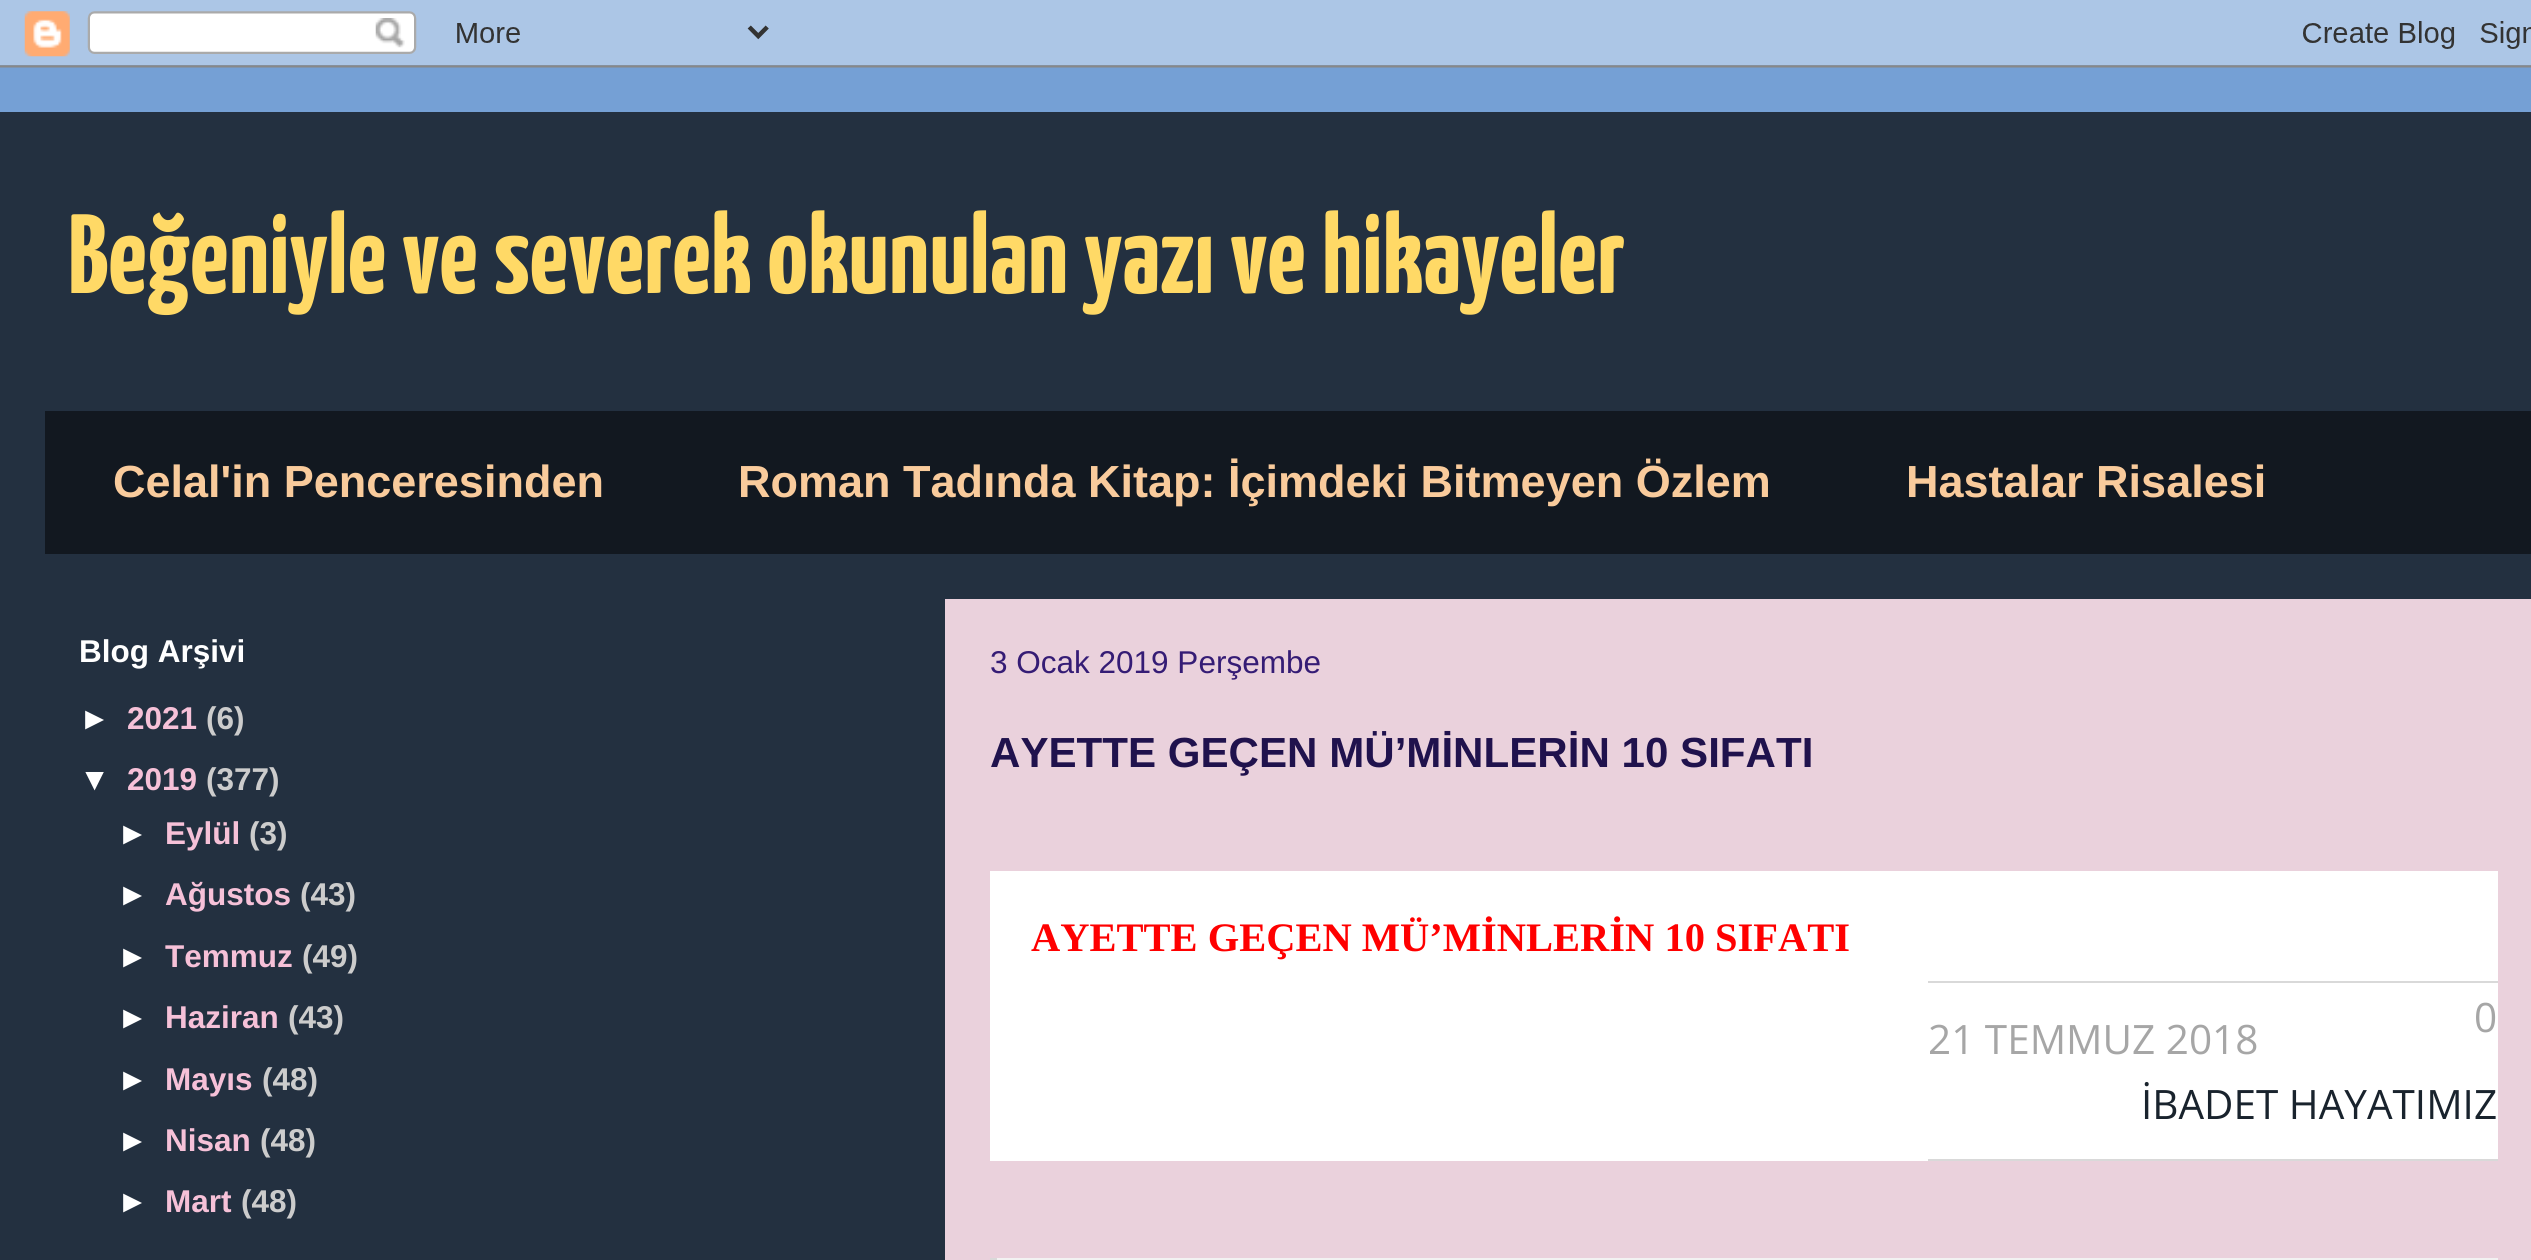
import math
import cairo


def use_color(cr, r, g, b):
  cr.set_source_rgb(r / 255, g / 255, b / 255)

def text(cr, x, y, s, family, size, color, bold=False, italic=False):
  cr.select_font_face(family, cairo.FONT_SLANT_ITALIC if italic else cairo.FONT_SLANT_NORMAL, cairo.FONT_WEIGHT_BOLD if bold else cairo.FONT_WEIGHT_NORMAL)
  cr.set_font_size(size)
  use_color(cr, *color)
  cr.move_to(x, y)
  cr.show_text(s)

def box(cr, x, y, w, h, *color):
  use_color(cr, *color)
  cr.rectangle(x, y, w, h)
  cr.fill()

def picture(cr, path, x, y, w, h):
  cr.save()
  cr.set_source_surface(cairo.ImageSurface.create_from_png(path), x, y)
  cr.rectangle(x, y, w, h)
  cr.fill()
  cr.restore()

def draw(cr):
  use_color(cr, 117, 160, 213)
  cr.paint()
  picture(cr, "img_01.png", 0, 0, 2531, 68)
  box(cr, 0, 112, 2531, 1148, 35, 48, 64)
  box(cr, 45, 411, 2486, 143, 18, 24, 32)
  box(cr, 945, 599, 1586, 661, 234, 209, 220)
  box(cr, 990, 871, 1508, 290, 255, 255, 255)
  box(cr, 1928, 981, 570, 2, 217, 217, 217)
  box(cr, 1928, 1159, 570, 2, 217, 217, 217)
  box(cr, 990, 1258, 1508, 2, 242, 242, 242)
  use_color(cr, 217, 217, 217)
  cr.new_path()
  cr.move_to(990, 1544)
  cr.line_to(990, 1258)
  cr.line_to(997, 1258)
  cr.line_to(997, 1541)
  cr.close_path()
  cr.fill()
  text(cr, 68, 293, "Beğeniyle ve severek okunulan yazı ve hikayeler", "Yanone Kaffeesatz ExtraLight", 112.5, (255, 217, 102))
  text(cr, 113, 497, "Celal'in Penceresinden", "Liberation Sans", 45, (249, 203, 156), bold=True)
  text(cr, 738, 497, "Roman Tadında Kitap: İçimdeki Bitmeyen Özlem", "Liberation Sans", 45, (249, 203, 156), bold=True)
  text(cr, 1906, 497, "Hastalar Risalesi", "Liberation Sans", 45, (249, 203, 156), bold=True)
  text(cr, 79, 662, "Blog Arşivi", "Liberation Sans", 31.5, (255, 255, 255), bold=True)
  text(cr, 79, 729, "►", "Liberation Sans", 31.5, (255, 255, 255), bold=True)
  text(cr, 127, 729, "2021", "Liberation Sans", 31.5, (246, 193, 216), bold=True)
  text(cr, 206, 729, "(6)", "Liberation Sans", 31.5, (204, 204, 204), bold=True)
  text(cr, 79, 790, "▼", "Liberation Sans", 31.5, (255, 255, 255), bold=True)
  text(cr, 127, 790, "2019", "Liberation Sans", 31.5, (246, 193, 216), bold=True)
  text(cr, 206, 790, "(377)", "Liberation Sans", 31.5, (204, 204, 204), bold=True)
  text(cr, 117, 844, "►", "Liberation Sans", 31.5, (255, 255, 255), bold=True)
  text(cr, 165, 844, "Eylül", "Liberation Sans", 31.5, (246, 193, 216), bold=True)
  text(cr, 249, 844, "(3)", "Liberation Sans", 31.5, (204, 204, 204), bold=True)
  text(cr, 117, 905, "►", "Liberation Sans", 31.5, (255, 255, 255), bold=True)
  text(cr, 165, 905, "Ağustos", "Liberation Sans", 31.5, (246, 193, 216), bold=True)
  text(cr, 300, 905, "(43)", "Liberation Sans", 31.5, (204, 204, 204), bold=True)
  text(cr, 117, 967, "►", "Liberation Sans", 31.5, (255, 255, 255), bold=True)
  text(cr, 165, 967, "Temmuz", "Liberation Sans", 31.5, (246, 193, 216), bold=True)
  text(cr, 302, 967, "(49)", "Liberation Sans", 31.5, (204, 204, 204), bold=True)
  text(cr, 117, 1028, "►", "Liberation Sans", 31.5, (255, 255, 255), bold=True)
  text(cr, 165, 1028, "Haziran", "Liberation Sans", 31.5, (246, 193, 216), bold=True)
  text(cr, 288, 1028, "(43)", "Liberation Sans", 31.5, (204, 204, 204), bold=True)
  text(cr, 117, 1090, "►", "Liberation Sans", 31.5, (255, 255, 255), bold=True)
  text(cr, 165, 1090, "Mayıs", "Liberation Sans", 31.5, (246, 193, 216), bold=True)
  text(cr, 262, 1090, "(48)", "Liberation Sans", 31.5, (204, 204, 204), bold=True)
  text(cr, 117, 1151, "►", "Liberation Sans", 31.5, (255, 255, 255), bold=True)
  text(cr, 165, 1151, "Nisan", "Liberation Sans", 31.5, (246, 193, 216), bold=True)
  text(cr, 260, 1151, "(48)", "Liberation Sans", 31.5, (204, 204, 204), bold=True)
  text(cr, 117, 1212, "►", "Liberation Sans", 31.5, (255, 255, 255), bold=True)
  text(cr, 165, 1212, "Mart", "Liberation Sans", 31.5, (246, 193, 216), bold=True)
  text(cr, 241, 1212, "(48)", "Liberation Sans", 31.5, (204, 204, 204), bold=True)
  text(cr, 990, 673, "3 Ocak 2019 Perşembe", "Liberation Sans", 31.5, (53, 28, 117))
  text(cr, 990, 767, "AYETTE GEÇEN MÜ’MİNLERİN 10 SIFATI", "Liberation Sans", 42.1, (32, 18, 77), bold=True)
  text(cr, 1031, 951, "AYETTE GEÇEN MÜ’MİNLERİN 10 SIFATI", "Liberation Serif", 40.5, (255, 0, 0), bold=True)
  text(cr, 2474, 1032, "0", "Open Sans", 40.5, (166, 166, 166))
  text(cr, 1928, 1054, "21 TEMMUZ 2018", "Open Sans", 40.5, (166, 166, 166))
  text(cr, 2141, 1119, "İBADET HAYATIMIZ", "Open Sans", 40.5, (25, 35, 45))


surface = cairo.ImageSurface(cairo.FORMAT_RGB24, 2531, 1260)
cr = cairo.Context(surface)
options = cairo.FontOptions()
options.set_hint_metrics(cairo.HINT_METRICS_OFF)
options.set_hint_style(cairo.HINT_STYLE_NONE)
cr.set_font_options(options)
cr.set_miter_limit(4)
draw(cr)
surface.write_to_png("out.png")
